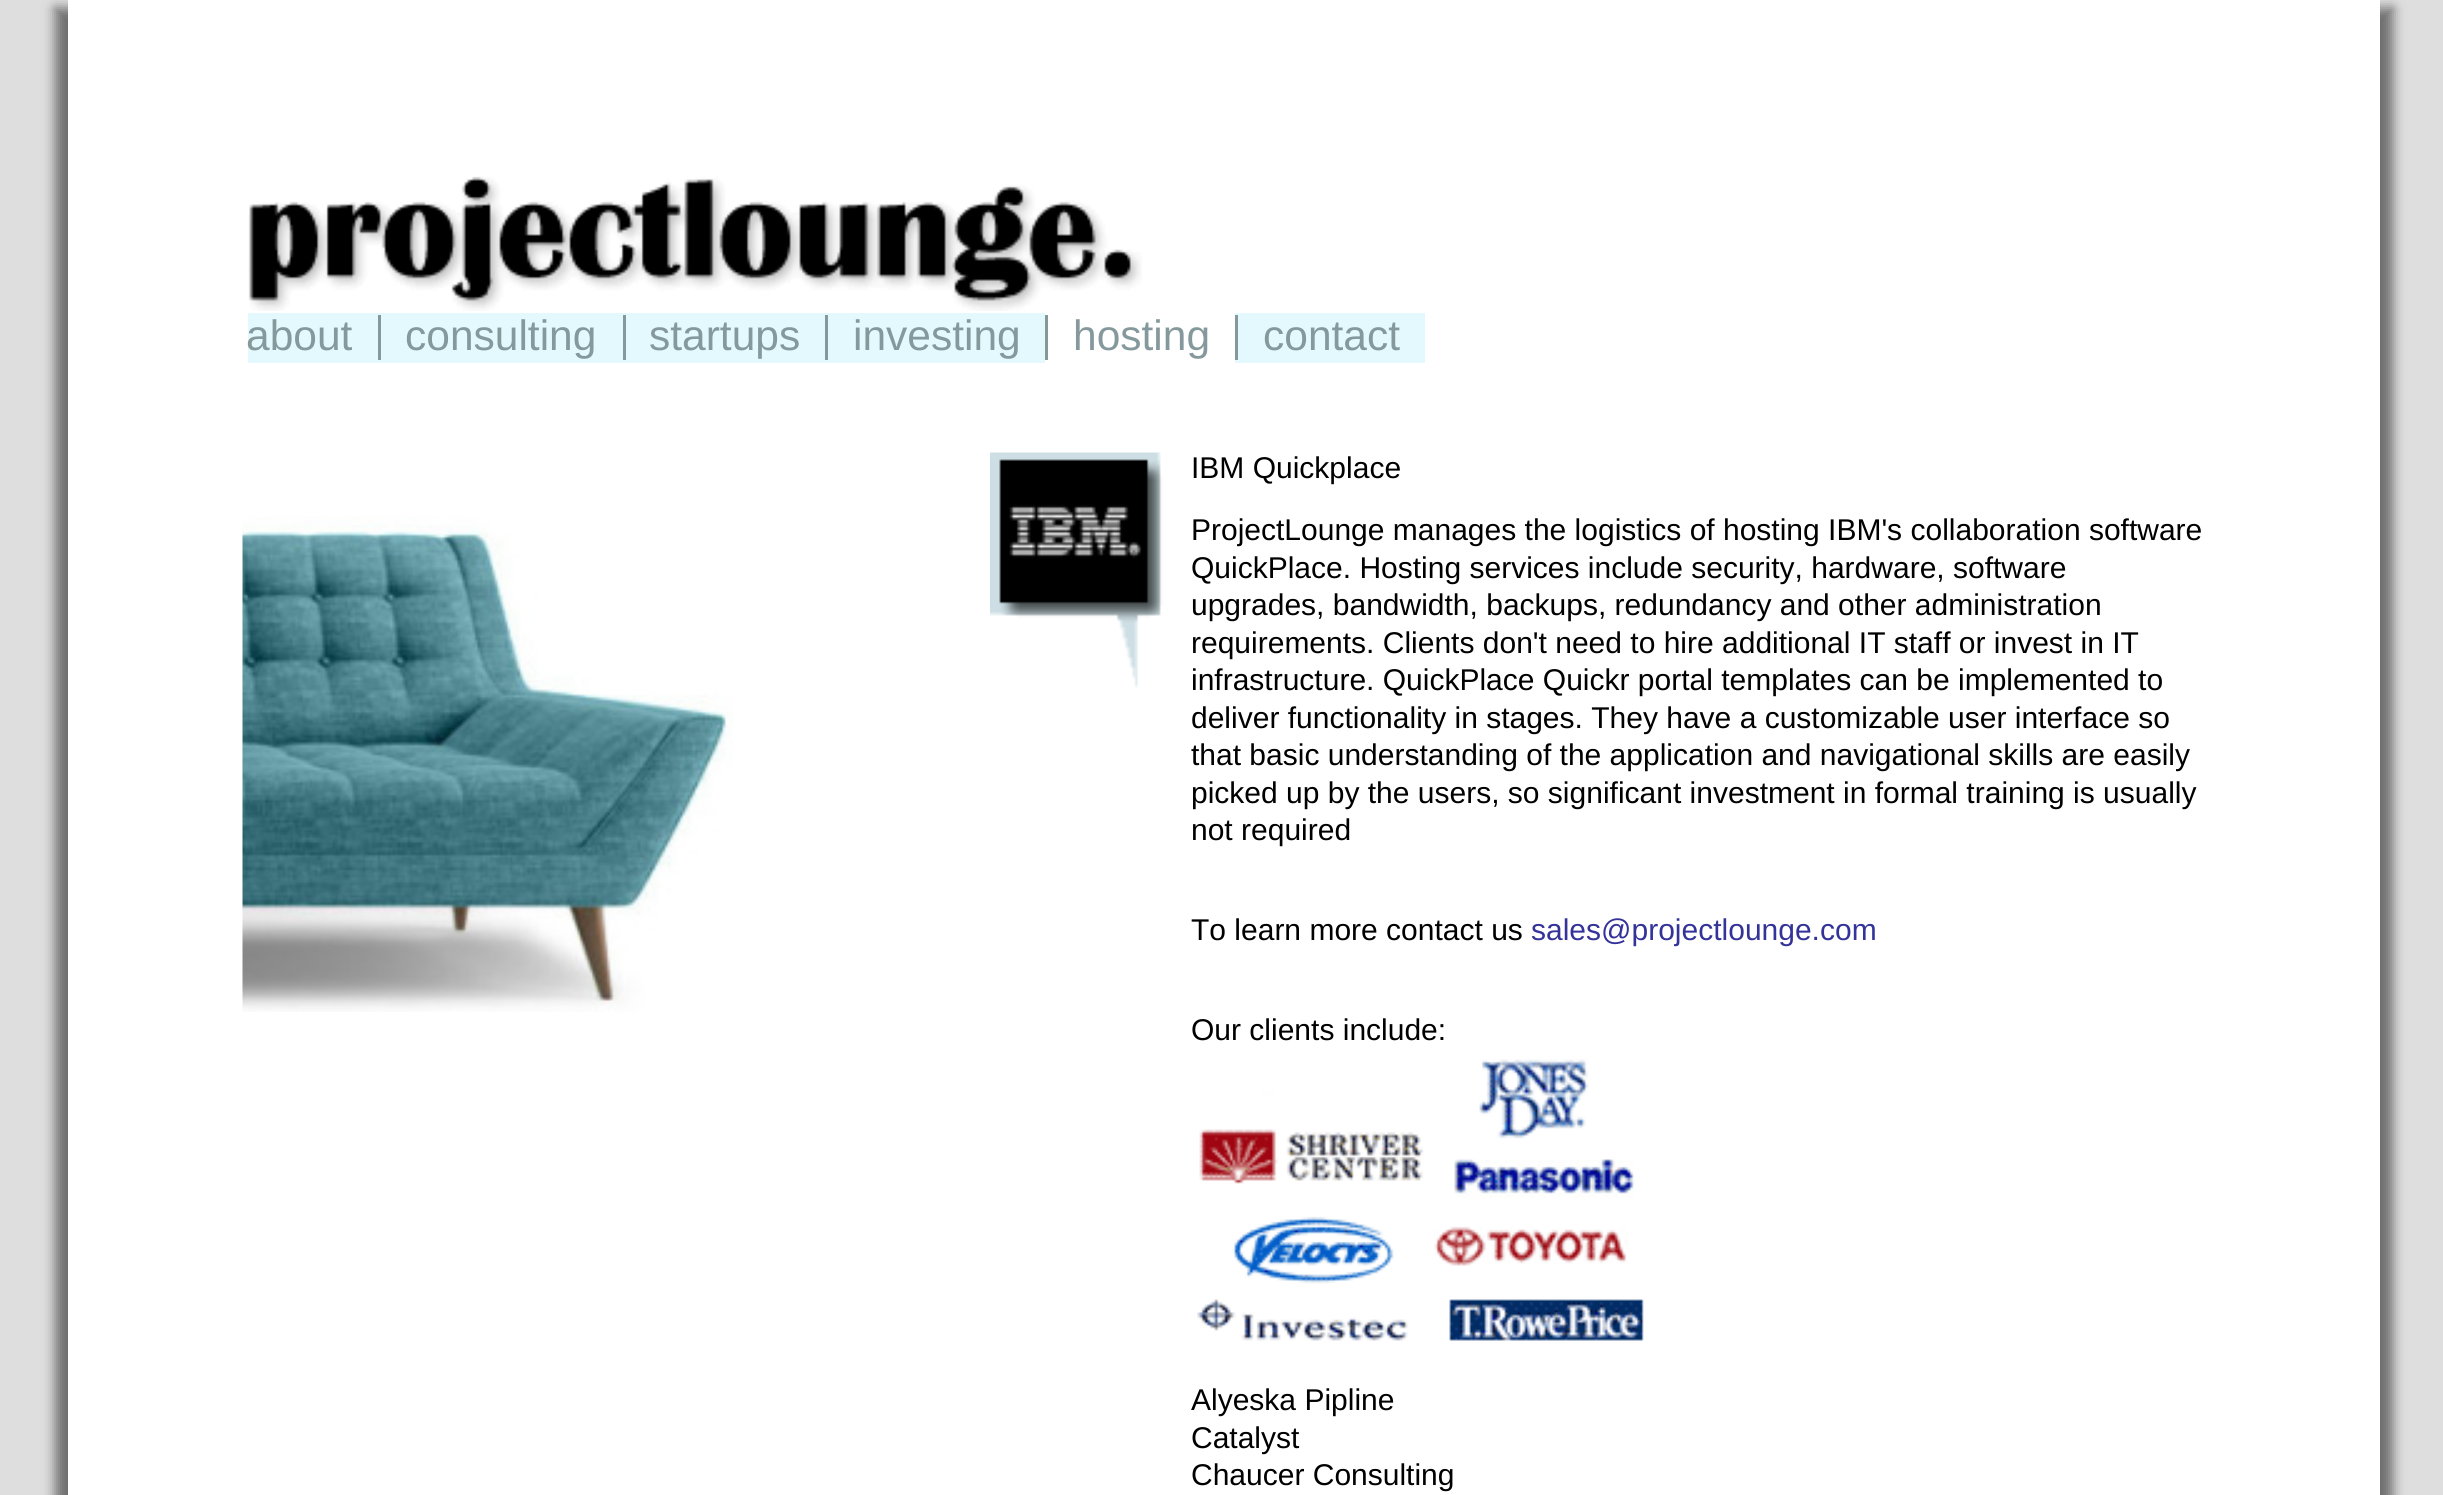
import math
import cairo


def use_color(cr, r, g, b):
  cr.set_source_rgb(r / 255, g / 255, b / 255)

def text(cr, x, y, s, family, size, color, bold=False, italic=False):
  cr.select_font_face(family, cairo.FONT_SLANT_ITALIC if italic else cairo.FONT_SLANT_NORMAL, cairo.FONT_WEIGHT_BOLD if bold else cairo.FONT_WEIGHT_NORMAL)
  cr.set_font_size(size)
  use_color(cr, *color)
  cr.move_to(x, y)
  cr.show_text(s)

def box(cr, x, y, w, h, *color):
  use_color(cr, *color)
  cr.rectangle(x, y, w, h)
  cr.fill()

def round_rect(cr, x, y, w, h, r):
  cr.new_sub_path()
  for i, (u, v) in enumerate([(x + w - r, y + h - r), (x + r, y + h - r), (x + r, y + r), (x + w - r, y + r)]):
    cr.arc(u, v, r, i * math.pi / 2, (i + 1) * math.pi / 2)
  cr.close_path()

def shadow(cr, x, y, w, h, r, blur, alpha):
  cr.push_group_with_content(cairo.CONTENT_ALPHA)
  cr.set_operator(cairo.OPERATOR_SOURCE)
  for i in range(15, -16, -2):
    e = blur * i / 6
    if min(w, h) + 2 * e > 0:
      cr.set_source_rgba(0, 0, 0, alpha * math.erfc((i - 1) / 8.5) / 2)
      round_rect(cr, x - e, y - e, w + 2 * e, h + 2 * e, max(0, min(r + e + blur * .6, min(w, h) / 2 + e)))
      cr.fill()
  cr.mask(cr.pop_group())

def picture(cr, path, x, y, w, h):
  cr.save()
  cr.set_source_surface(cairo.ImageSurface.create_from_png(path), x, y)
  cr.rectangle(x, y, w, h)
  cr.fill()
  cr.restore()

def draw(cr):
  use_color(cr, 222, 222, 222)
  cr.paint()
  use_color(cr, 0, 0, 0)
  shadow(cr, 55, 8, 2313, 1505, 0, 6, 0.5)
  shadow(cr, 80, 8, 2313, 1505, 0, 6, 0.5)
  box(cr, 68, 0, 2312, 1495, 255, 255, 255)
  picture(cr, "img_01.png", 248, 176, 894, 135)
  box(cr, 248, 313, 1177, 50, 228, 249, 253)
  box(cr, 378, 315, 3, 45, 133, 153, 157)
  box(cr, 623, 315, 3, 45, 133, 153, 157)
  box(cr, 825, 315, 3, 45, 133, 153, 157)
  box(cr, 1045, 313, 190, 50, 255, 255, 255)
  box(cr, 1045, 315, 3, 45, 133, 153, 157)
  box(cr, 1235, 315, 3, 45, 133, 153, 157)
  picture(cr, "img_02.png", 242, 516, 491, 496)
  picture(cr, "img_03.png", 990, 452, 173, 236)
  picture(cr, "img_04.png", 1197, 1059, 447, 282)
  text(cr, 246, 350, "about", "Liberation Sans", 42.5, (133, 153, 157))
  text(cr, 405, 350, "consulting", "Liberation Sans", 42.5, (133, 153, 157))
  text(cr, 649, 350, "startups", "Liberation Sans", 42.5, (133, 153, 157))
  text(cr, 853, 350, "investing", "Liberation Sans", 42.5, (133, 153, 157))
  text(cr, 1073, 350, "hosting", "Liberation Sans", 42.5, (133, 153, 157))
  text(cr, 1263, 350, "contact", "Liberation Sans", 42.5, (133, 153, 157))
  text(cr, 1191, 478, "IBM Quickplace", "Liberation Sans", 30, (0, 0, 0))
  text(cr, 1191, 540, "ProjectLounge manages the logistics of hosting IBM's collaboration software", "Liberation Sans", 30, (0, 0, 0))
  text(cr, 1191, 578, "QuickPlace. Hosting services include security, hardware, software", "Liberation Sans", 30, (0, 0, 0))
  text(cr, 1191, 615, "upgrades, bandwidth, backups, redundancy and other administration", "Liberation Sans", 30, (0, 0, 0))
  text(cr, 1191, 653, "requirements. Clients don't need to hire additional IT staff or invest in IT", "Liberation Sans", 30, (0, 0, 0))
  text(cr, 1191, 690, "infrastructure. QuickPlace Quickr portal templates can be implemented to", "Liberation Sans", 30, (0, 0, 0))
  text(cr, 1191, 728, "deliver functionality in stages. They have a customizable user interface so", "Liberation Sans", 30, (0, 0, 0))
  text(cr, 1191, 765, "that basic understanding of the application and navigational skills are easily", "Liberation Sans", 30, (0, 0, 0))
  text(cr, 1191, 803, "picked up by the users, so significant investment in formal training is usually", "Liberation Sans", 30, (0, 0, 0))
  text(cr, 1191, 840, "not required", "Liberation Sans", 30, (0, 0, 0))
  text(cr, 1191, 940, "To learn more contact us", "Liberation Sans", 30, (0, 0, 0))
  text(cr, 1531, 940, "sales@projectlounge.com", "Liberation Sans", 30, (52, 51, 153))
  text(cr, 1191, 1040, "Our clients include:", "Liberation Sans", 30, (0, 0, 0))
  text(cr, 1191, 1410, "Alyeska Pipline", "Liberation Sans", 30, (0, 0, 0))
  text(cr, 1191, 1448, "Catalyst", "Liberation Sans", 30, (0, 0, 0))
  text(cr, 1191, 1485, "Chaucer Consulting", "Liberation Sans", 30, (0, 0, 0))


surface = cairo.ImageSurface(cairo.FORMAT_RGB24, 2443, 1495)
cr = cairo.Context(surface)
options = cairo.FontOptions()
options.set_hint_metrics(cairo.HINT_METRICS_OFF)
options.set_hint_style(cairo.HINT_STYLE_NONE)
cr.set_font_options(options)
cr.set_miter_limit(4)
draw(cr)
surface.write_to_png("out.png")
